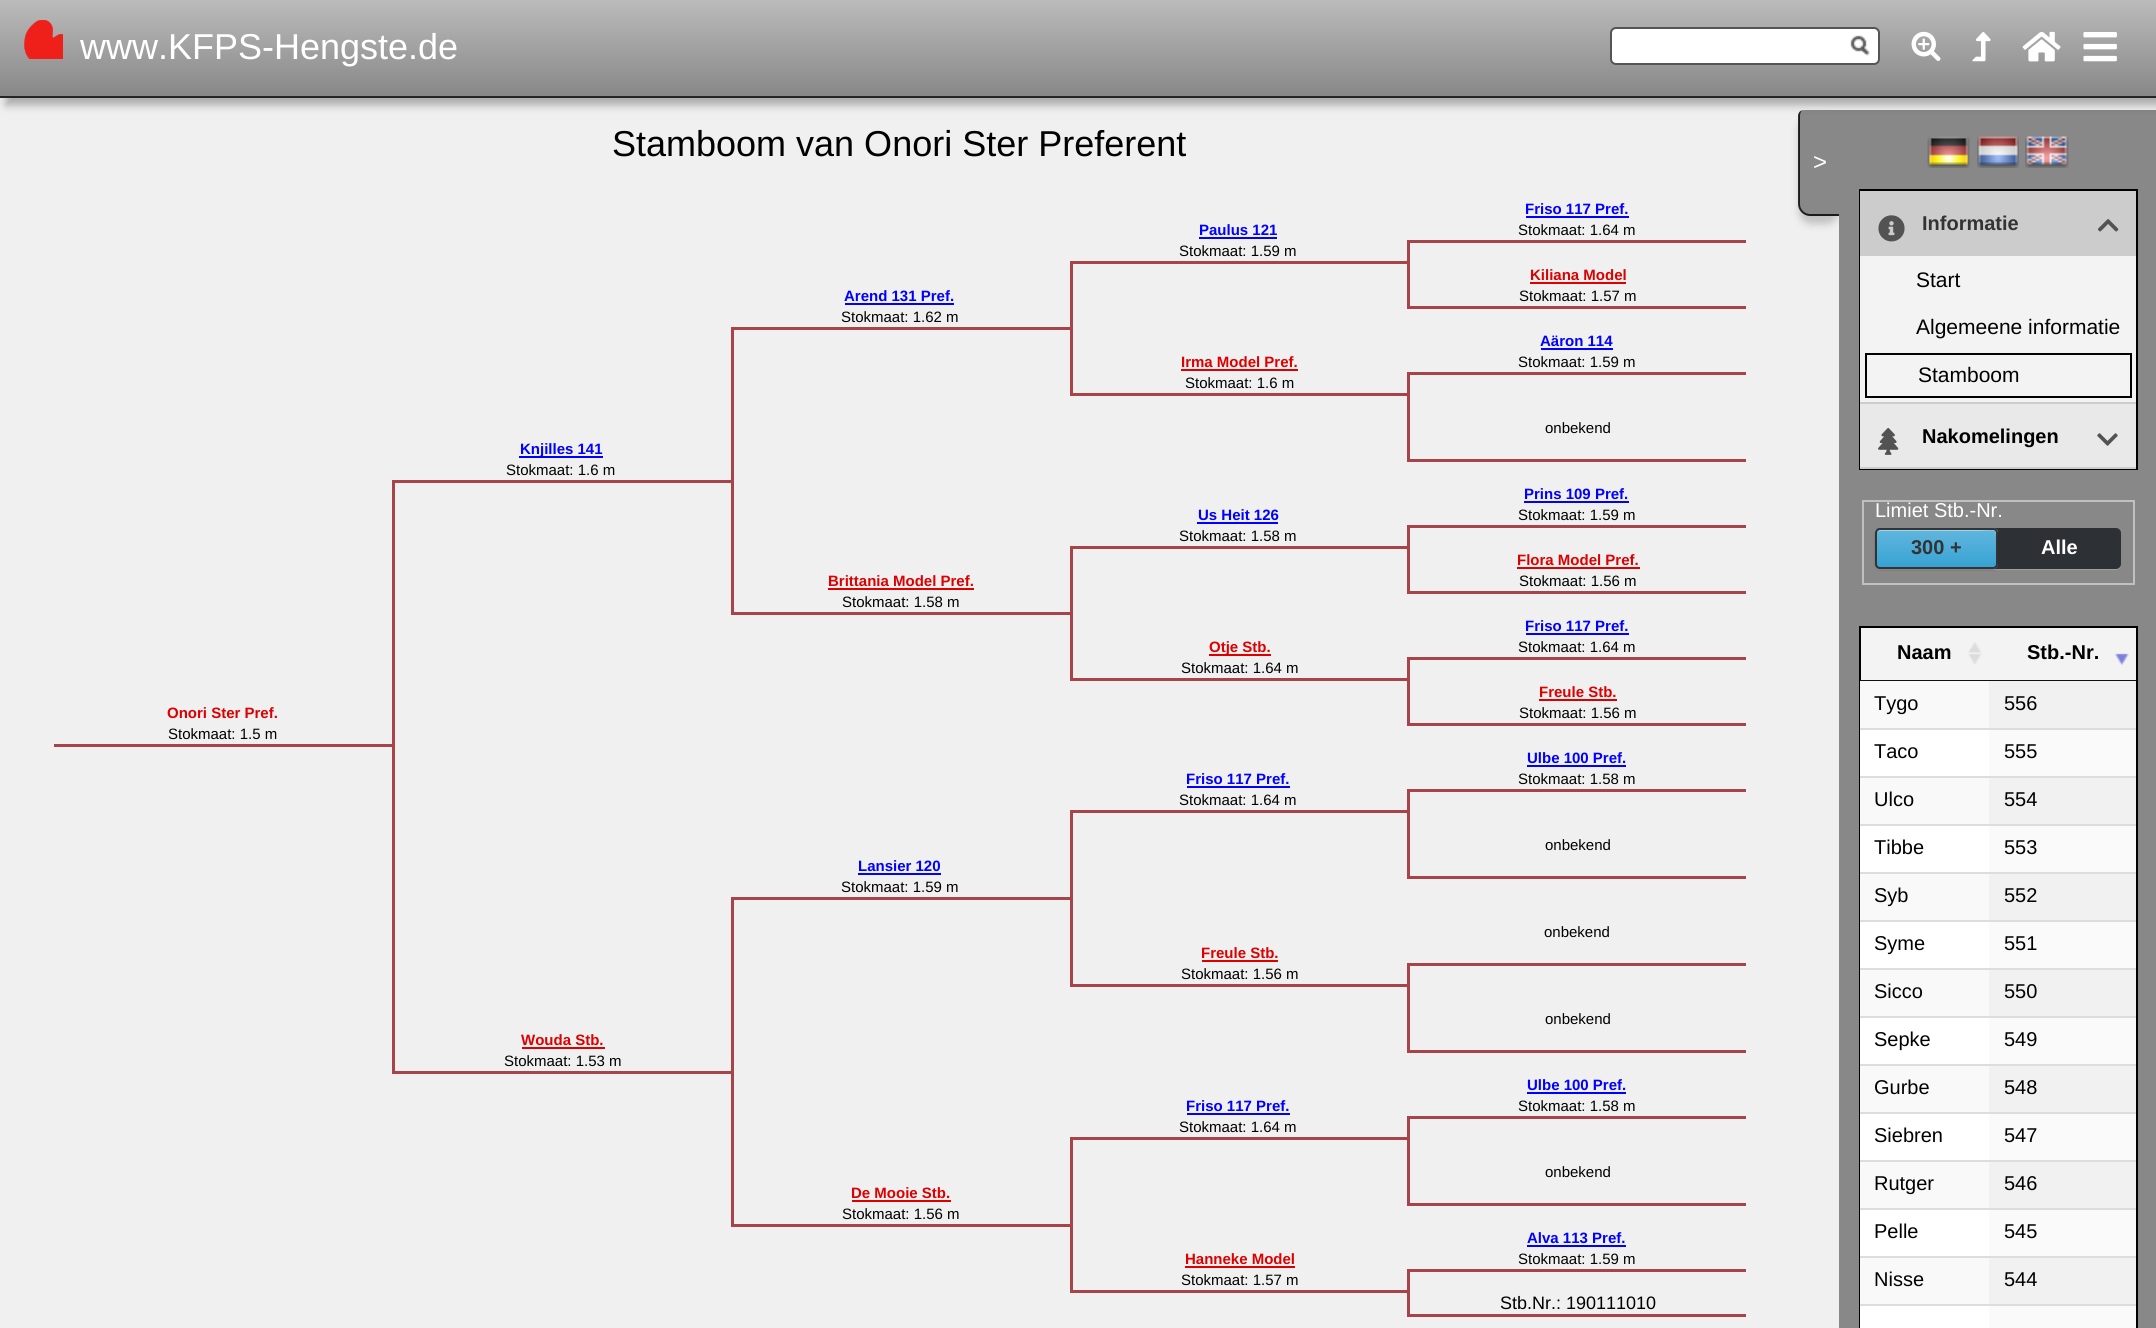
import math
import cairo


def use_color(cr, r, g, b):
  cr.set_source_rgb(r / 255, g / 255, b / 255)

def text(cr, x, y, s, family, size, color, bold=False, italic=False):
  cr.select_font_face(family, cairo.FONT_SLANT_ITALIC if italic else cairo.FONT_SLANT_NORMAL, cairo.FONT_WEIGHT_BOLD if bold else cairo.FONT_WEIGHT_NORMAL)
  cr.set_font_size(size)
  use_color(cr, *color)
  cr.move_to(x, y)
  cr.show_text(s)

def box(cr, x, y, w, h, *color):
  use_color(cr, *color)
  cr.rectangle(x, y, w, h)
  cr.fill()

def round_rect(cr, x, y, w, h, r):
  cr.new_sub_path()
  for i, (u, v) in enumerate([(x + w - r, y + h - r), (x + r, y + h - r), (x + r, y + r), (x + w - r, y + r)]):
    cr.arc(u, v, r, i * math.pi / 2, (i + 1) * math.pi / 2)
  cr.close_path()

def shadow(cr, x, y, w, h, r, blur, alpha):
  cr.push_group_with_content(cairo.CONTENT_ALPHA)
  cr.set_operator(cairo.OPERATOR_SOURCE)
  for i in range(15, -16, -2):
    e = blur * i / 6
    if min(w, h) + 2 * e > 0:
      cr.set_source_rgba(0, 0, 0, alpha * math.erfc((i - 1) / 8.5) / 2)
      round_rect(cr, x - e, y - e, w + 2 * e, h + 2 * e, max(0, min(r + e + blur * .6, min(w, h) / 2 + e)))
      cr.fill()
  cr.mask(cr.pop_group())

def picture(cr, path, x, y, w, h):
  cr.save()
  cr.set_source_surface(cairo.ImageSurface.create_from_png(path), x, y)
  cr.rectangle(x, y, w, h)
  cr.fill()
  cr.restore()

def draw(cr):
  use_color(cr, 240, 240, 240)
  cr.paint()
  use_color(cr, 0, 0, 0)
  shadow(cr, 1799, 117, 40, 107, 12, 4, 0.2)
  use_color(cr, 136, 136, 136)
  cr.new_path()
  cr.move_to(1805, 110)
  cr.line_to(1839, 110)
  cr.line_to(1839, 216)
  cr.line_to(1811, 216)
  cr.curve_to(1804.5, 216, 1799, 210.5, 1799, 204)
  cr.line_to(1799, 116)
  cr.curve_to(1799, 112.5, 1801.5, 110, 1805, 110)
  cr.close_path()
  cr.fill()
  cr.set_source_rgba(0, 0, 0, 0.8)
  cr.set_fill_rule(cairo.FILL_RULE_EVEN_ODD)
  cr.new_path()
  cr.move_to(1804, 110)
  cr.line_to(1839, 110)
  cr.line_to(1839, 216)
  cr.line_to(1810, 216)
  cr.curve_to(1804, 216, 1798, 211, 1798, 204)
  cr.line_to(1798, 116)
  cr.curve_to(1798, 112, 1801, 110, 1804, 110)
  cr.close_path()
  cr.move_to(1804, 110)
  cr.line_to(1839, 110)
  cr.line_to(1839, 214)
  cr.line_to(1810, 214)
  cr.curve_to(1805, 214, 1800, 210, 1800, 204)
  cr.line_to(1800, 116)
  cr.curve_to(1800, 112, 1802, 110, 1804, 110)
  cr.close_path()
  cr.fill()
  box(cr, 1839, 110, 317, 1218, 136, 136, 136)
  use_color(cr, 0, 0, 0)
  shadow(cr, 6, 8, 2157, 97, 0, 4.5, 0.3)
  gradient = cairo.LinearGradient(1079, 0, 1079, 96)
  gradient.add_color_stop_rgba(0, 0.733, 0.733, 0.733, 1)
  gradient.add_color_stop_rgba(1, 0.533, 0.533, 0.533, 1)
  cr.set_source(gradient)
  cr.rectangle(0, 0, 2156, 96)
  cr.fill()
  box(cr, 0, 96, 2156, 2, 37, 37, 37)
  picture(cr, "img_01.png", 24, 20, 39, 39)
  use_color(cr, 255, 255, 255)
  round_rect(cr, 1611, 28, 268, 36, 5)
  cr.fill_preserve()
  use_color(cr, 85, 85, 85)
  cr.stroke()
  picture(cr, "img_02.png", 1850, 35, 20, 21)
  picture(cr, "img_03.png", 1911, 31, 30, 30)
  picture(cr, "img_04.png", 1972, 32, 19, 30)
  picture(cr, "img_05.png", 2022, 31, 39, 31)
  picture(cr, "img_06.png", 2083, 32, 34, 30)
  box(cr, 1407, 240, 339, 3, 167, 68, 73)
  box(cr, 1526, 216, 103, 2, 0, 0, 255)
  box(cr, 1070, 261, 337, 3, 167, 68, 73)
  box(cr, 1199, 237, 78, 2, 0, 0, 255)
  box(cr, 731, 327, 339, 3, 167, 68, 73)
  box(cr, 845, 303, 109, 2, 0, 0, 255)
  box(cr, 392, 480, 339, 3, 167, 68, 73)
  box(cr, 519, 456, 84, 2, 0, 0, 255)
  box(cr, 54, 744, 338, 3, 167, 68, 73)
  box(cr, 1407, 243, 3, 21, 167, 68, 73)
  box(cr, 1070, 264, 3, 66, 167, 68, 73)
  box(cr, 1407, 306, 339, 3, 167, 68, 73)
  box(cr, 1407, 264, 3, 45, 167, 68, 73)
  box(cr, 1530, 282, 96, 2, 221, 0, 0)
  box(cr, 731, 330, 3, 153, 167, 68, 73)
  box(cr, 1407, 372, 339, 3, 167, 68, 73)
  box(cr, 1541, 348, 72, 2, 0, 0, 255)
  box(cr, 1070, 393, 337, 3, 167, 68, 73)
  box(cr, 1070, 330, 3, 66, 167, 68, 73)
  box(cr, 1181, 369, 117, 2, 221, 0, 0)
  box(cr, 1407, 375, 3, 21, 167, 68, 73)
  box(cr, 1407, 459, 339, 3, 167, 68, 73)
  box(cr, 1407, 396, 3, 66, 167, 68, 73)
  box(cr, 392, 483, 3, 264, 167, 68, 73)
  box(cr, 1407, 525, 339, 3, 167, 68, 73)
  box(cr, 1524, 501, 105, 2, 0, 0, 255)
  box(cr, 1070, 546, 337, 3, 167, 68, 73)
  box(cr, 1197, 522, 81, 2, 0, 0, 255)
  box(cr, 731, 612, 339, 3, 167, 68, 73)
  box(cr, 731, 483, 3, 132, 167, 68, 73)
  box(cr, 828, 588, 146, 2, 221, 0, 0)
  box(cr, 1407, 528, 3, 21, 167, 68, 73)
  box(cr, 1070, 549, 3, 66, 167, 68, 73)
  box(cr, 1407, 591, 339, 3, 167, 68, 73)
  box(cr, 1407, 549, 3, 45, 167, 68, 73)
  box(cr, 1517, 567, 123, 2, 221, 0, 0)
  box(cr, 1407, 657, 339, 3, 167, 68, 73)
  box(cr, 1526, 633, 103, 2, 0, 0, 255)
  box(cr, 1070, 678, 337, 3, 167, 68, 73)
  box(cr, 1070, 615, 3, 66, 167, 68, 73)
  box(cr, 1209, 654, 62, 2, 221, 0, 0)
  box(cr, 1407, 660, 3, 21, 167, 68, 73)
  box(cr, 1407, 723, 339, 3, 167, 68, 73)
  box(cr, 1407, 681, 3, 45, 167, 68, 73)
  box(cr, 1539, 699, 78, 2, 221, 0, 0)
  box(cr, 1407, 789, 339, 3, 167, 68, 73)
  box(cr, 1527, 765, 99, 2, 0, 0, 255)
  box(cr, 1070, 810, 337, 3, 167, 68, 73)
  box(cr, 1187, 786, 103, 2, 0, 0, 255)
  box(cr, 731, 897, 339, 3, 167, 68, 73)
  box(cr, 858, 873, 83, 2, 0, 0, 255)
  box(cr, 392, 1071, 339, 3, 167, 68, 73)
  box(cr, 392, 747, 3, 327, 167, 68, 73)
  box(cr, 522, 1047, 83, 2, 221, 0, 0)
  box(cr, 1407, 792, 3, 21, 167, 68, 73)
  box(cr, 1070, 813, 3, 87, 167, 68, 73)
  box(cr, 1407, 876, 339, 3, 167, 68, 73)
  box(cr, 1407, 813, 3, 66, 167, 68, 73)
  box(cr, 731, 900, 3, 174, 167, 68, 73)
  box(cr, 1407, 963, 339, 3, 167, 68, 73)
  box(cr, 1070, 984, 337, 3, 167, 68, 73)
  box(cr, 1070, 900, 3, 87, 167, 68, 73)
  box(cr, 1202, 960, 76, 2, 221, 0, 0)
  box(cr, 1407, 966, 3, 21, 167, 68, 73)
  box(cr, 1407, 1050, 339, 3, 167, 68, 73)
  box(cr, 1407, 987, 3, 66, 167, 68, 73)
  box(cr, 1407, 1116, 339, 3, 167, 68, 73)
  box(cr, 1527, 1092, 99, 2, 0, 0, 255)
  box(cr, 1070, 1137, 337, 3, 167, 68, 73)
  box(cr, 1187, 1113, 103, 2, 0, 0, 255)
  box(cr, 731, 1224, 339, 3, 167, 68, 73)
  box(cr, 731, 1074, 3, 153, 167, 68, 73)
  box(cr, 852, 1200, 99, 2, 221, 0, 0)
  box(cr, 1407, 1119, 3, 21, 167, 68, 73)
  box(cr, 1070, 1140, 3, 87, 167, 68, 73)
  box(cr, 1407, 1203, 339, 3, 167, 68, 73)
  box(cr, 1407, 1140, 3, 66, 167, 68, 73)
  box(cr, 1407, 1269, 339, 3, 167, 68, 73)
  box(cr, 1527, 1245, 99, 2, 0, 0, 255)
  box(cr, 1070, 1290, 337, 3, 167, 68, 73)
  box(cr, 1070, 1227, 3, 66, 167, 68, 73)
  box(cr, 1185, 1266, 110, 2, 221, 0, 0)
  box(cr, 1407, 1272, 3, 21, 167, 68, 73)
  box(cr, 1407, 1314, 339, 3, 167, 68, 73)
  box(cr, 1407, 1293, 3, 24, 167, 68, 73)
  picture(cr, "img_07.png", 1927, 136, 43, 32)
  picture(cr, "img_08.png", 1977, 136, 42, 32)
  picture(cr, "img_09.png", 2025, 136, 44, 32)
  cr.rectangle(1860, 190, 277, 279)
  use_color(cr, 0, 0, 0)
  cr.stroke()
  box(cr, 1860, 256, 276, 146, 243, 243, 243)
  box(cr, 1860, 191, 276, 65, 204, 204, 204)
  picture(cr, "img_10.png", 1878, 215, 27, 27)
  picture(cr, "img_11.png", 2097, 219, 22, 13)
  box(cr, 1860, 402, 276, 2, 204, 204, 204)
  cr.rectangle(1866, 354, 265, 43)
  use_color(cr, 0, 0, 0)
  cr.stroke()
  box(cr, 1860, 404, 276, 63, 233, 233, 233)
  box(cr, 1860, 467, 276, 2, 204, 204, 204)
  picture(cr, "img_12.png", 1878, 427, 21, 28)
  picture(cr, "img_13.png", 2097, 433, 21, 13)
  cr.rectangle(1863, 501, 271, 83)
  use_color(cr, 192, 192, 192)
  cr.stroke()
  use_color(cr, 160, 160, 160)
  cr.set_fill_rule(cairo.FILL_RULE_WINDING)
  cr.new_path()
  cr.move_to(1875, 564)
  cr.line_to(1875, 565)
  cr.curve_to(1875, 568, 1877, 570, 1880, 570)
  cr.line_to(2116, 570)
  cr.curve_to(2119, 570, 2121, 568, 2121, 565)
  cr.line_to(2121, 564)
  cr.curve_to(2121, 566, 2119, 568, 2116, 568)
  cr.line_to(1880, 568)
  cr.curve_to(1877, 568, 1875, 566, 1875, 564)
  cr.close_path()
  cr.fill()
  use_color(cr, 45, 48, 53)
  round_rect(cr, 1875, 528, 246, 41, 5)
  cr.fill()
  use_color(cr, 0, 0, 0)
  shadow(cr, 1875, 530, 123, 40, 5, 1, 0.2)
  use_color(cr, 56, 163, 212)
  round_rect(cr, 1875, 528, 123, 41, 5)
  cr.fill()
  gradient = cairo.LinearGradient(1937, 530, 1937, 567)
  gradient.add_color_stop_rgba(0, 1, 1, 1, 0.2)
  gradient.add_color_stop_rgba(1, 1, 1, 1, 0)
  cr.set_source(gradient)
  cr.rectangle(1875, 530, 123, 33)
  cr.fill()
  cr.set_source_rgba(1, 1, 1, 0.45)
  cr.new_path()
  cr.move_to(1880, 531)
  cr.line_to(1975, 531)
  cr.curve_to(1998, 531, 1996, 526, 1996, 545)
  cr.line_to(1996, 566)
  cr.curve_to(1997, 566, 1997, 565, 1997, 564)
  cr.line_to(1997, 533)
  cr.curve_to(1997, 531, 1996, 530, 1994, 530)
  cr.line_to(1880, 530)
  cr.curve_to(1879, 530, 1878, 531, 1877, 532)
  cr.close_path()
  cr.fill()
  round_rect(cr, 1876, 529, 121, 39, 4)
  use_color(cr, 51, 51, 51)
  cr.stroke()
  box(cr, 1861, 628, 275, 52, 243, 243, 243)
  cr.rectangle(1860, 627, 277, 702)
  use_color(cr, 0, 0, 0)
  cr.stroke()
  picture(cr, "img_14.png", 1968, 642, 14, 23)
  box(cr, 1860, 680, 276, 1, 17, 17, 17)
  picture(cr, "img_15.png", 2114, 653, 15, 12)
  box(cr, 1860, 681, 129, 47, 249, 249, 249)
  box(cr, 1989, 681, 147, 47, 241, 241, 241)
  box(cr, 1860, 730, 129, 46, 255, 255, 255)
  box(cr, 1860, 728, 276, 2, 221, 221, 221)
  box(cr, 1989, 730, 147, 46, 250, 250, 250)
  box(cr, 1860, 778, 129, 46, 249, 249, 249)
  box(cr, 1860, 776, 276, 2, 221, 221, 221)
  box(cr, 1989, 778, 147, 46, 241, 241, 241)
  box(cr, 1860, 826, 129, 46, 255, 255, 255)
  box(cr, 1860, 824, 276, 2, 221, 221, 221)
  box(cr, 1989, 826, 147, 46, 250, 250, 250)
  box(cr, 1860, 874, 129, 46, 249, 249, 249)
  box(cr, 1860, 872, 276, 2, 221, 221, 221)
  box(cr, 1989, 874, 147, 46, 241, 241, 241)
  box(cr, 1860, 922, 129, 46, 255, 255, 255)
  box(cr, 1860, 920, 276, 2, 221, 221, 221)
  box(cr, 1989, 922, 147, 46, 250, 250, 250)
  box(cr, 1860, 970, 129, 46, 249, 249, 249)
  box(cr, 1860, 968, 276, 2, 221, 221, 221)
  box(cr, 1989, 970, 147, 46, 241, 241, 241)
  box(cr, 1860, 1018, 129, 46, 255, 255, 255)
  box(cr, 1860, 1016, 276, 2, 221, 221, 221)
  box(cr, 1989, 1018, 147, 46, 250, 250, 250)
  box(cr, 1860, 1066, 129, 46, 249, 249, 249)
  box(cr, 1860, 1064, 276, 2, 221, 221, 221)
  box(cr, 1989, 1066, 147, 46, 241, 241, 241)
  box(cr, 1860, 1114, 129, 46, 255, 255, 255)
  box(cr, 1860, 1112, 276, 2, 221, 221, 221)
  box(cr, 1989, 1114, 147, 46, 250, 250, 250)
  box(cr, 1860, 1162, 129, 46, 249, 249, 249)
  box(cr, 1860, 1160, 276, 2, 221, 221, 221)
  box(cr, 1989, 1162, 147, 46, 241, 241, 241)
  box(cr, 1860, 1210, 129, 46, 255, 255, 255)
  box(cr, 1860, 1208, 276, 2, 221, 221, 221)
  box(cr, 1989, 1210, 147, 46, 250, 250, 250)
  box(cr, 1860, 1258, 129, 46, 249, 249, 249)
  box(cr, 1860, 1256, 276, 2, 221, 221, 221)
  box(cr, 1989, 1258, 147, 46, 241, 241, 241)
  box(cr, 1860, 1306, 129, 22, 255, 255, 255)
  box(cr, 1860, 1304, 276, 2, 221, 221, 221)
  box(cr, 1989, 1306, 147, 22, 250, 250, 250)
  text(cr, 80, 59, "www.KFPS-Hengste.de", "Liberation Sans", 36, (255, 255, 255))
  text(cr, 612, 156, "Stamboom van Onori Ster Preferent", "Liberation Sans", 36, (0, 0, 0))
  text(cr, 1525, 214, "Friso 117 Pref.", "Liberation Sans", 15, (0, 0, 255), bold=True)
  text(cr, 1518, 235, "Stokmaat: 1.64 m", "Liberation Sans", 15, (0, 0, 0))
  text(cr, 1199, 235, "Paulus 121", "Liberation Sans", 15, (0, 0, 255), bold=True)
  text(cr, 1179, 256, "Stokmaat: 1.59 m", "Liberation Sans", 15, (0, 0, 0))
  text(cr, 844, 301, "Arend 131 Pref.", "Liberation Sans", 15, (0, 0, 255), bold=True)
  text(cr, 841, 322, "Stokmaat: 1.62 m", "Liberation Sans", 15, (0, 0, 0))
  text(cr, 520, 454, "Knjilles 141", "Liberation Sans", 15, (0, 0, 255), bold=True)
  text(cr, 506, 475, "Stokmaat: 1.6 m", "Liberation Sans", 15, (0, 0, 0))
  text(cr, 167, 718, "Onori Ster Pref.", "Liberation Sans", 15, (221, 0, 0), bold=True)
  text(cr, 168, 739, "Stokmaat: 1.5 m", "Liberation Sans", 15, (0, 0, 0))
  text(cr, 1530, 280, "Kiliana Model", "Liberation Sans", 15, (221, 0, 0), bold=True)
  text(cr, 1519, 301, "Stokmaat: 1.57 m", "Liberation Sans", 15, (0, 0, 0))
  text(cr, 1540, 346, "Aäron 114", "Liberation Sans", 15, (0, 0, 255), bold=True)
  text(cr, 1518, 367, "Stokmaat: 1.59 m", "Liberation Sans", 15, (0, 0, 0))
  text(cr, 1181, 367, "Irma Model Pref.", "Liberation Sans", 15, (221, 0, 0), bold=True)
  text(cr, 1185, 388, "Stokmaat: 1.6 m", "Liberation Sans", 15, (0, 0, 0))
  text(cr, 1545, 433, "onbekend", "Liberation Sans", 15, (0, 0, 0))
  text(cr, 1524, 499, "Prins 109 Pref.", "Liberation Sans", 15, (0, 0, 255), bold=True)
  text(cr, 1518, 520, "Stokmaat: 1.59 m", "Liberation Sans", 15, (0, 0, 0))
  text(cr, 1198, 520, "Us Heit 126", "Liberation Sans", 15, (0, 0, 255), bold=True)
  text(cr, 1179, 541, "Stokmaat: 1.58 m", "Liberation Sans", 15, (0, 0, 0))
  text(cr, 828, 586, "Brittania Model Pref.", "Liberation Sans", 15, (221, 0, 0), bold=True)
  text(cr, 842, 607, "Stokmaat: 1.58 m", "Liberation Sans", 15, (0, 0, 0))
  text(cr, 1517, 565, "Flora Model Pref.", "Liberation Sans", 15, (221, 0, 0), bold=True)
  text(cr, 1519, 586, "Stokmaat: 1.56 m", "Liberation Sans", 15, (0, 0, 0))
  text(cr, 1525, 631, "Friso 117 Pref.", "Liberation Sans", 15, (0, 0, 255), bold=True)
  text(cr, 1518, 652, "Stokmaat: 1.64 m", "Liberation Sans", 15, (0, 0, 0))
  text(cr, 1209, 652, "Otje Stb.", "Liberation Sans", 15, (221, 0, 0), bold=True)
  text(cr, 1181, 673, "Stokmaat: 1.64 m", "Liberation Sans", 15, (0, 0, 0))
  text(cr, 1539, 697, "Freule Stb.", "Liberation Sans", 15, (221, 0, 0), bold=True)
  text(cr, 1519, 718, "Stokmaat: 1.56 m", "Liberation Sans", 15, (0, 0, 0))
  text(cr, 1527, 763, "Ulbe 100 Pref.", "Liberation Sans", 15, (0, 0, 255), bold=True)
  text(cr, 1518, 784, "Stokmaat: 1.58 m", "Liberation Sans", 15, (0, 0, 0))
  text(cr, 1186, 784, "Friso 117 Pref.", "Liberation Sans", 15, (0, 0, 255), bold=True)
  text(cr, 1179, 805, "Stokmaat: 1.64 m", "Liberation Sans", 15, (0, 0, 0))
  text(cr, 858, 871, "Lansier 120", "Liberation Sans", 15, (0, 0, 255), bold=True)
  text(cr, 841, 892, "Stokmaat: 1.59 m", "Liberation Sans", 15, (0, 0, 0))
  text(cr, 521, 1045, "Wouda Stb.", "Liberation Sans", 15, (221, 0, 0), bold=True)
  text(cr, 504, 1066, "Stokmaat: 1.53 m", "Liberation Sans", 15, (0, 0, 0))
  text(cr, 1545, 850, "onbekend", "Liberation Sans", 15, (0, 0, 0))
  text(cr, 1544, 937, "onbekend", "Liberation Sans", 15, (0, 0, 0))
  text(cr, 1201, 958, "Freule Stb.", "Liberation Sans", 15, (221, 0, 0), bold=True)
  text(cr, 1181, 979, "Stokmaat: 1.56 m", "Liberation Sans", 15, (0, 0, 0))
  text(cr, 1545, 1024, "onbekend", "Liberation Sans", 15, (0, 0, 0))
  text(cr, 1527, 1090, "Ulbe 100 Pref.", "Liberation Sans", 15, (0, 0, 255), bold=True)
  text(cr, 1518, 1111, "Stokmaat: 1.58 m", "Liberation Sans", 15, (0, 0, 0))
  text(cr, 1186, 1111, "Friso 117 Pref.", "Liberation Sans", 15, (0, 0, 255), bold=True)
  text(cr, 1179, 1132, "Stokmaat: 1.64 m", "Liberation Sans", 15, (0, 0, 0))
  text(cr, 851, 1198, "De Mooie Stb.", "Liberation Sans", 15, (221, 0, 0), bold=True)
  text(cr, 842, 1219, "Stokmaat: 1.56 m", "Liberation Sans", 15, (0, 0, 0))
  text(cr, 1545, 1177, "onbekend", "Liberation Sans", 15, (0, 0, 0))
  text(cr, 1527, 1243, "Alva 113 Pref.", "Liberation Sans", 15, (0, 0, 255), bold=True)
  text(cr, 1518, 1264, "Stokmaat: 1.59 m", "Liberation Sans", 15, (0, 0, 0))
  text(cr, 1185, 1264, "Hanneke Model", "Liberation Sans", 15, (221, 0, 0), bold=True)
  text(cr, 1181, 1285, "Stokmaat: 1.57 m", "Liberation Sans", 15, (0, 0, 0))
  text(cr, 1500, 1309, "Stb.Nr.: 190111010", "Liberation Sans", 18, (0, 0, 0))
  text(cr, 1813, 170, ">", "Liberation Sans", 24, (255, 255, 255))
  text(cr, 1922, 230, "Informatie", "Liberation Sans", 20, (51, 51, 51), bold=True)
  text(cr, 1916, 287, "Start", "Liberation Sans", 21, (0, 0, 0))
  text(cr, 1916, 334, "Algemeene informatie", "Liberation Sans", 21, (0, 0, 0))
  text(cr, 1918, 382, "Stamboom", "Liberation Sans", 21, (0, 0, 0))
  text(cr, 1922, 443, "Nakomelingen", "Liberation Sans", 20, (0, 0, 0), bold=True)
  text(cr, 1875, 517, "Limiet Stb.-Nr.", "Liberation Sans", 20, (255, 255, 255))
  text(cr, 2041, 554, "Alle", "Liberation Sans", 20, (255, 255, 255), bold=True)
  text(cr, 1911, 554, "300 +", "Liberation Sans", 20, (51, 51, 51), bold=True)
  text(cr, 1897, 659, "Naam", "Liberation Sans", 20, (0, 0, 0), bold=True)
  text(cr, 2027, 659, "Stb.-Nr.", "Liberation Sans", 20, (0, 0, 0), bold=True)
  text(cr, 1874, 710, "Tygo", "Liberation Sans", 20, (0, 0, 0))
  text(cr, 2004, 710, "556", "Liberation Sans", 20, (0, 0, 0))
  text(cr, 1874, 758, "Taco", "Liberation Sans", 20, (0, 0, 0))
  text(cr, 2004, 758, "555", "Liberation Sans", 20, (0, 0, 0))
  text(cr, 1874, 806, "Ulco", "Liberation Sans", 20, (0, 0, 0))
  text(cr, 2004, 806, "554", "Liberation Sans", 20, (0, 0, 0))
  text(cr, 1874, 854, "Tibbe", "Liberation Sans", 20, (0, 0, 0))
  text(cr, 2004, 854, "553", "Liberation Sans", 20, (0, 0, 0))
  text(cr, 1874, 902, "Syb", "Liberation Sans", 20, (0, 0, 0))
  text(cr, 2004, 902, "552", "Liberation Sans", 20, (0, 0, 0))
  text(cr, 1874, 950, "Syme", "Liberation Sans", 20, (0, 0, 0))
  text(cr, 2004, 950, "551", "Liberation Sans", 20, (0, 0, 0))
  text(cr, 1874, 998, "Sicco", "Liberation Sans", 20, (0, 0, 0))
  text(cr, 2004, 998, "550", "Liberation Sans", 20, (0, 0, 0))
  text(cr, 1874, 1046, "Sepke", "Liberation Sans", 20, (0, 0, 0))
  text(cr, 2004, 1046, "549", "Liberation Sans", 20, (0, 0, 0))
  text(cr, 1874, 1094, "Gurbe", "Liberation Sans", 20, (0, 0, 0))
  text(cr, 2004, 1094, "548", "Liberation Sans", 20, (0, 0, 0))
  text(cr, 1874, 1142, "Siebren", "Liberation Sans", 20, (0, 0, 0))
  text(cr, 2004, 1142, "547", "Liberation Sans", 20, (0, 0, 0))
  text(cr, 1874, 1190, "Rutger", "Liberation Sans", 20, (0, 0, 0))
  text(cr, 2004, 1190, "546", "Liberation Sans", 20, (0, 0, 0))
  text(cr, 1874, 1238, "Pelle", "Liberation Sans", 20, (0, 0, 0))
  text(cr, 2004, 1238, "545", "Liberation Sans", 20, (0, 0, 0))
  text(cr, 1874, 1286, "Nisse", "Liberation Sans", 20, (0, 0, 0))
  text(cr, 2004, 1286, "544", "Liberation Sans", 20, (0, 0, 0))


surface = cairo.ImageSurface(cairo.FORMAT_RGB24, 2156, 1328)
cr = cairo.Context(surface)
options = cairo.FontOptions()
options.set_hint_metrics(cairo.HINT_METRICS_OFF)
options.set_hint_style(cairo.HINT_STYLE_NONE)
cr.set_font_options(options)
cr.set_miter_limit(4)
draw(cr)
surface.write_to_png("out.png")
